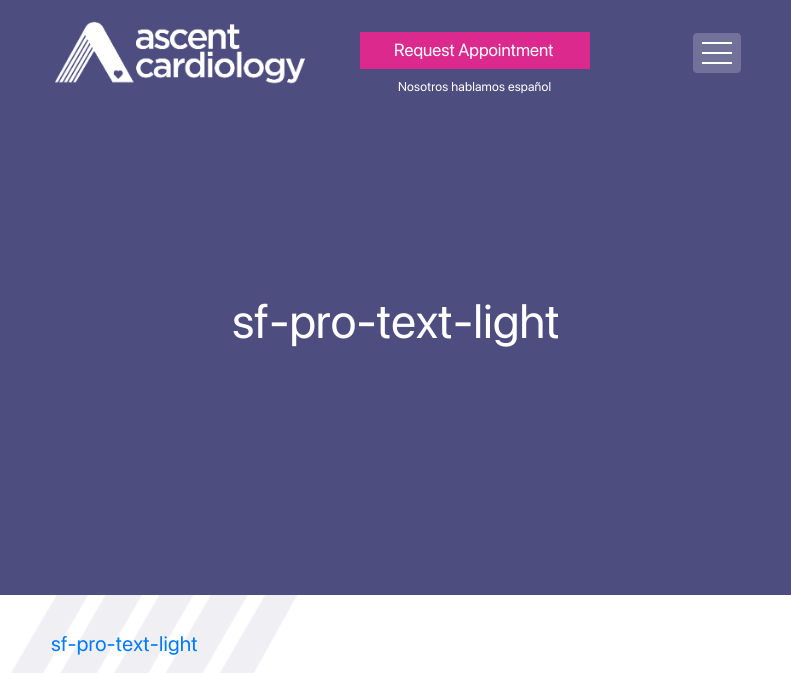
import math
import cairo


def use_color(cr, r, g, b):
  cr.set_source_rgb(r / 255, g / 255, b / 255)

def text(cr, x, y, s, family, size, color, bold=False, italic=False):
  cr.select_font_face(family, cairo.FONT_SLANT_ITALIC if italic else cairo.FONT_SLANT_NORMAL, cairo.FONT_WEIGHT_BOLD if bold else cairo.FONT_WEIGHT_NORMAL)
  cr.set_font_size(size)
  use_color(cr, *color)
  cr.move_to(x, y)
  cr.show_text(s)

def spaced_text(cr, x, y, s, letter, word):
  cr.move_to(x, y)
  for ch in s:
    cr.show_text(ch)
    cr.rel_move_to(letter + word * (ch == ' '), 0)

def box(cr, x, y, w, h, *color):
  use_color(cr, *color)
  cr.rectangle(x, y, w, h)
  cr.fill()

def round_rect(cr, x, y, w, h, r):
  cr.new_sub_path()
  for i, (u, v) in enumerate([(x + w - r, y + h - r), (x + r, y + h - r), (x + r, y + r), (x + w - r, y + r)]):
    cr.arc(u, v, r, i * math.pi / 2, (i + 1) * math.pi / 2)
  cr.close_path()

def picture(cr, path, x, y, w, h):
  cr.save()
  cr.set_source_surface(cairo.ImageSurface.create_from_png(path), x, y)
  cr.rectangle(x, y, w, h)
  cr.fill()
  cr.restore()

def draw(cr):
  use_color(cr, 255, 255, 255)
  cr.paint()
  box(cr, 0, 0, 791, 595, 78, 77, 127)
  picture(cr, "img_01.png", 55, 21, 250, 63)
  box(cr, 360, 32, 230, 37, 220, 41, 141)
  use_color(cr, 113, 113, 153)
  round_rect(cr, 693, 33, 48, 40, 4)
  cr.fill()
  box(cr, 702, 42, 30, 2, 255, 255, 255)
  box(cr, 702, 52, 30, 2, 255, 255, 255)
  box(cr, 702, 62, 30, 2, 255, 255, 255)
  picture(cr, "img_02.png", 11, 595, 286, 78)
  text(cr, 394, 56, "Request Appointment", "SF Pro Display", 17.5, (255, 255, 255))
  cr.set_font_size(12.75)
  spaced_text(cr, 398, 91, "Nosotros hablamos español", 0.2, 0)
  text(cr, 232, 338, "sf-pro-text-light", "SF Pro Display", 48, (255, 255, 255))
  cr.set_font_size(21)
  use_color(cr, 0, 123, 255)
  spaced_text(cr, 51, 651, "sf-pro-text-light", 0.2, 0)


surface = cairo.ImageSurface(cairo.FORMAT_RGB24, 791, 673)
cr = cairo.Context(surface)
options = cairo.FontOptions()
options.set_hint_metrics(cairo.HINT_METRICS_OFF)
options.set_hint_style(cairo.HINT_STYLE_NONE)
cr.set_font_options(options)
cr.set_miter_limit(4)
draw(cr)
surface.write_to_png("out.png")
